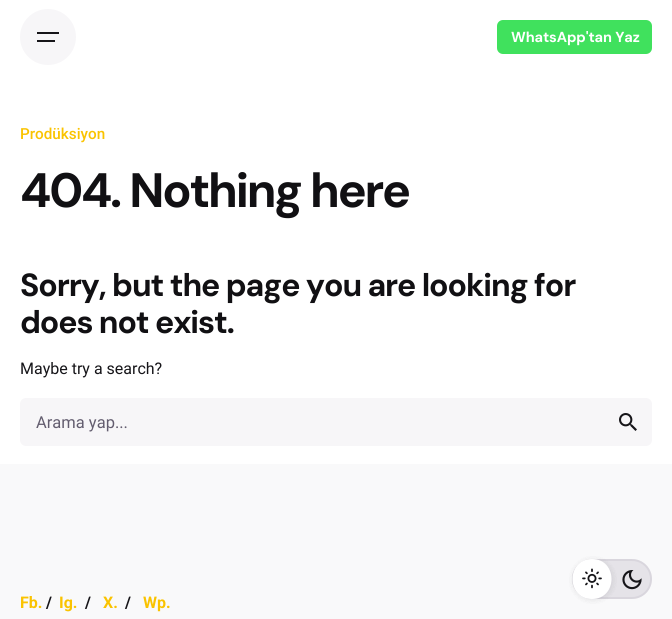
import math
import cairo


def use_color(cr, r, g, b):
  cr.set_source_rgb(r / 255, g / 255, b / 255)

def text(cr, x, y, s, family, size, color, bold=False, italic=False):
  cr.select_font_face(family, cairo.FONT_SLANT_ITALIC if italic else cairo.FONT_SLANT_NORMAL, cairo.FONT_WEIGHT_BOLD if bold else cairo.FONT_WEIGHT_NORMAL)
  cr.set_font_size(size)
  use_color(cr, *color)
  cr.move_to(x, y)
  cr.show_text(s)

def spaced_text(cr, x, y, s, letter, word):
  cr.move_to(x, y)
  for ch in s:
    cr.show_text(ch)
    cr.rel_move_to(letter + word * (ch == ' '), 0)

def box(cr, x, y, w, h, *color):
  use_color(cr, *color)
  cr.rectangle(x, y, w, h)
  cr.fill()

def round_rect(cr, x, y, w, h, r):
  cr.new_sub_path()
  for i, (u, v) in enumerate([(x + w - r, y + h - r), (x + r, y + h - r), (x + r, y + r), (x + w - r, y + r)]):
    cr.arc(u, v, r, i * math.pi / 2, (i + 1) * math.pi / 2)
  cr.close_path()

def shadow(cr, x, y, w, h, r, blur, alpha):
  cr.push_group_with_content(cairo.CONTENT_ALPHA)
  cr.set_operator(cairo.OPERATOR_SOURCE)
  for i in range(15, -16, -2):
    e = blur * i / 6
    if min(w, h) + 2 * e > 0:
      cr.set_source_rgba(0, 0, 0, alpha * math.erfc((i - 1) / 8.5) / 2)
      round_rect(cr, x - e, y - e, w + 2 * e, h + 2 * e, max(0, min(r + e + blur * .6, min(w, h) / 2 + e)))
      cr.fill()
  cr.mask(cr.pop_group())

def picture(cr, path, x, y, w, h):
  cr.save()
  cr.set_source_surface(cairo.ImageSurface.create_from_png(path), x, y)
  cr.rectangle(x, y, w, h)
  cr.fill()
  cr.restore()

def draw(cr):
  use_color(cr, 255, 255, 255)
  cr.paint()
  use_color(cr, 247, 246, 248)
  cr.arc(48, 37, 28, 0, 2 * math.pi)
  cr.fill()
  box(cr, 37, 32, 22, 2, 22, 21, 25)
  box(cr, 37, 40, 18, 2, 22, 21, 25)
  use_color(cr, 64, 225, 93)
  round_rect(cr, 497, 20, 155, 34, 6)
  cr.fill()
  use_color(cr, 247, 246, 248)
  round_rect(cr, 20, 398, 632, 48, 6)
  cr.fill()
  picture(cr, "img_01.png", 619, 413, 18, 18)
  box(cr, 0, 464, 672, 155, 249, 249, 250)
  use_color(cr, 229, 227, 232)
  cr.new_path()
  cr.move_to(632, 599)
  cr.line_to(592, 599)
  cr.curve_to(581, 599, 572, 590, 572, 579)
  cr.curve_to(572, 568, 581, 559, 592, 559)
  cr.line_to(632, 559)
  cr.curve_to(643, 559, 652, 568, 652, 579)
  cr.curve_to(652, 590, 643, 599, 632, 599)
  cr.close_path()
  cr.fill()
  cr.new_path()
  cr.move_to(632, 598)
  cr.line_to(592, 598)
  cr.curve_to(581.5, 598, 573, 589.5, 573, 579)
  cr.curve_to(573, 568.5, 581.5, 560, 592, 560)
  cr.line_to(632, 560)
  cr.curve_to(642.5, 560, 651, 568.5, 651, 579)
  cr.curve_to(651, 589.5, 642.5, 598, 632, 598)
  cr.close_path()
  cr.set_source_rgba(0.588, 0.565, 0.635, 0.15)
  cr.stroke()
  picture(cr, "img_03.png", 622, 570, 20, 20)
  use_color(cr, 17, 16, 19)
  shadow(cr, 573, 560, 40, 40, 20, 3, 0.05)
  shadow(cr, 573, 560, 40, 40, 20, 3, 0.05)
  use_color(cr, 255, 255, 255)
  cr.new_path()
  cr.move_to(592, 599)
  cr.curve_to(566, 599, 566, 559, 592, 559)
  cr.curve_to(618, 559, 618, 599, 592, 599)
  cr.close_path()
  cr.fill()
  picture(cr, "img_02.png", 582, 568, 20, 21)
  cr.select_font_face("DM Sans", cairo.FONT_SLANT_NORMAL, cairo.FONT_WEIGHT_BOLD)
  cr.set_font_size(14.5)
  spaced_text(cr, 511, 42, "WhatsApp'tan Yaz", -0.1, 0)
  text(cr, 20, 139, "Prodüksiyon", "Roboto Medium", 15.25, (250, 195, 0))
  cr.select_font_face("DM Sans", cairo.FONT_SLANT_NORMAL, cairo.FONT_WEIGHT_BOLD)
  cr.set_font_size(48.25)
  use_color(cr, 17, 16, 19)
  spaced_text(cr, 20, 207, "404. Nothing here", -2.2, 0)
  cr.set_font_size(32)
  spaced_text(cr, 20, 296, "Sorry, but the page you are looking for", -1.1, 0)
  spaced_text(cr, 20, 333, "does not exist.", -1.1, 0)
  text(cr, 20, 374, "Maybe try a search?", "Roboto", 16, (22, 21, 25))
  text(cr, 36, 428, "Arama yap...", "Roboto", 16.5, (99, 93, 111))
  text(cr, 20, 608, "Fb.", "Roboto", 16, (250, 195, 0), bold=True)
  text(cr, 46, 608, "/", "Roboto", 16, (22, 21, 25), bold=True)
  text(cr, 59, 608, "Ig.", "Roboto", 16, (250, 195, 0), bold=True)
  text(cr, 85, 608, "/", "Roboto", 16, (22, 21, 25), bold=True)
  text(cr, 103, 608, "X.", "Roboto", 16, (250, 195, 0), bold=True)
  text(cr, 125, 608, "/", "Roboto", 16, (22, 21, 25), bold=True)
  text(cr, 143, 608, "Wp.", "Roboto", 16, (250, 195, 0), bold=True)


surface = cairo.ImageSurface(cairo.FORMAT_RGB24, 672, 619)
cr = cairo.Context(surface)
options = cairo.FontOptions()
options.set_hint_metrics(cairo.HINT_METRICS_OFF)
options.set_hint_style(cairo.HINT_STYLE_NONE)
cr.set_font_options(options)
cr.set_miter_limit(4)
draw(cr)
surface.write_to_png("out.png")
